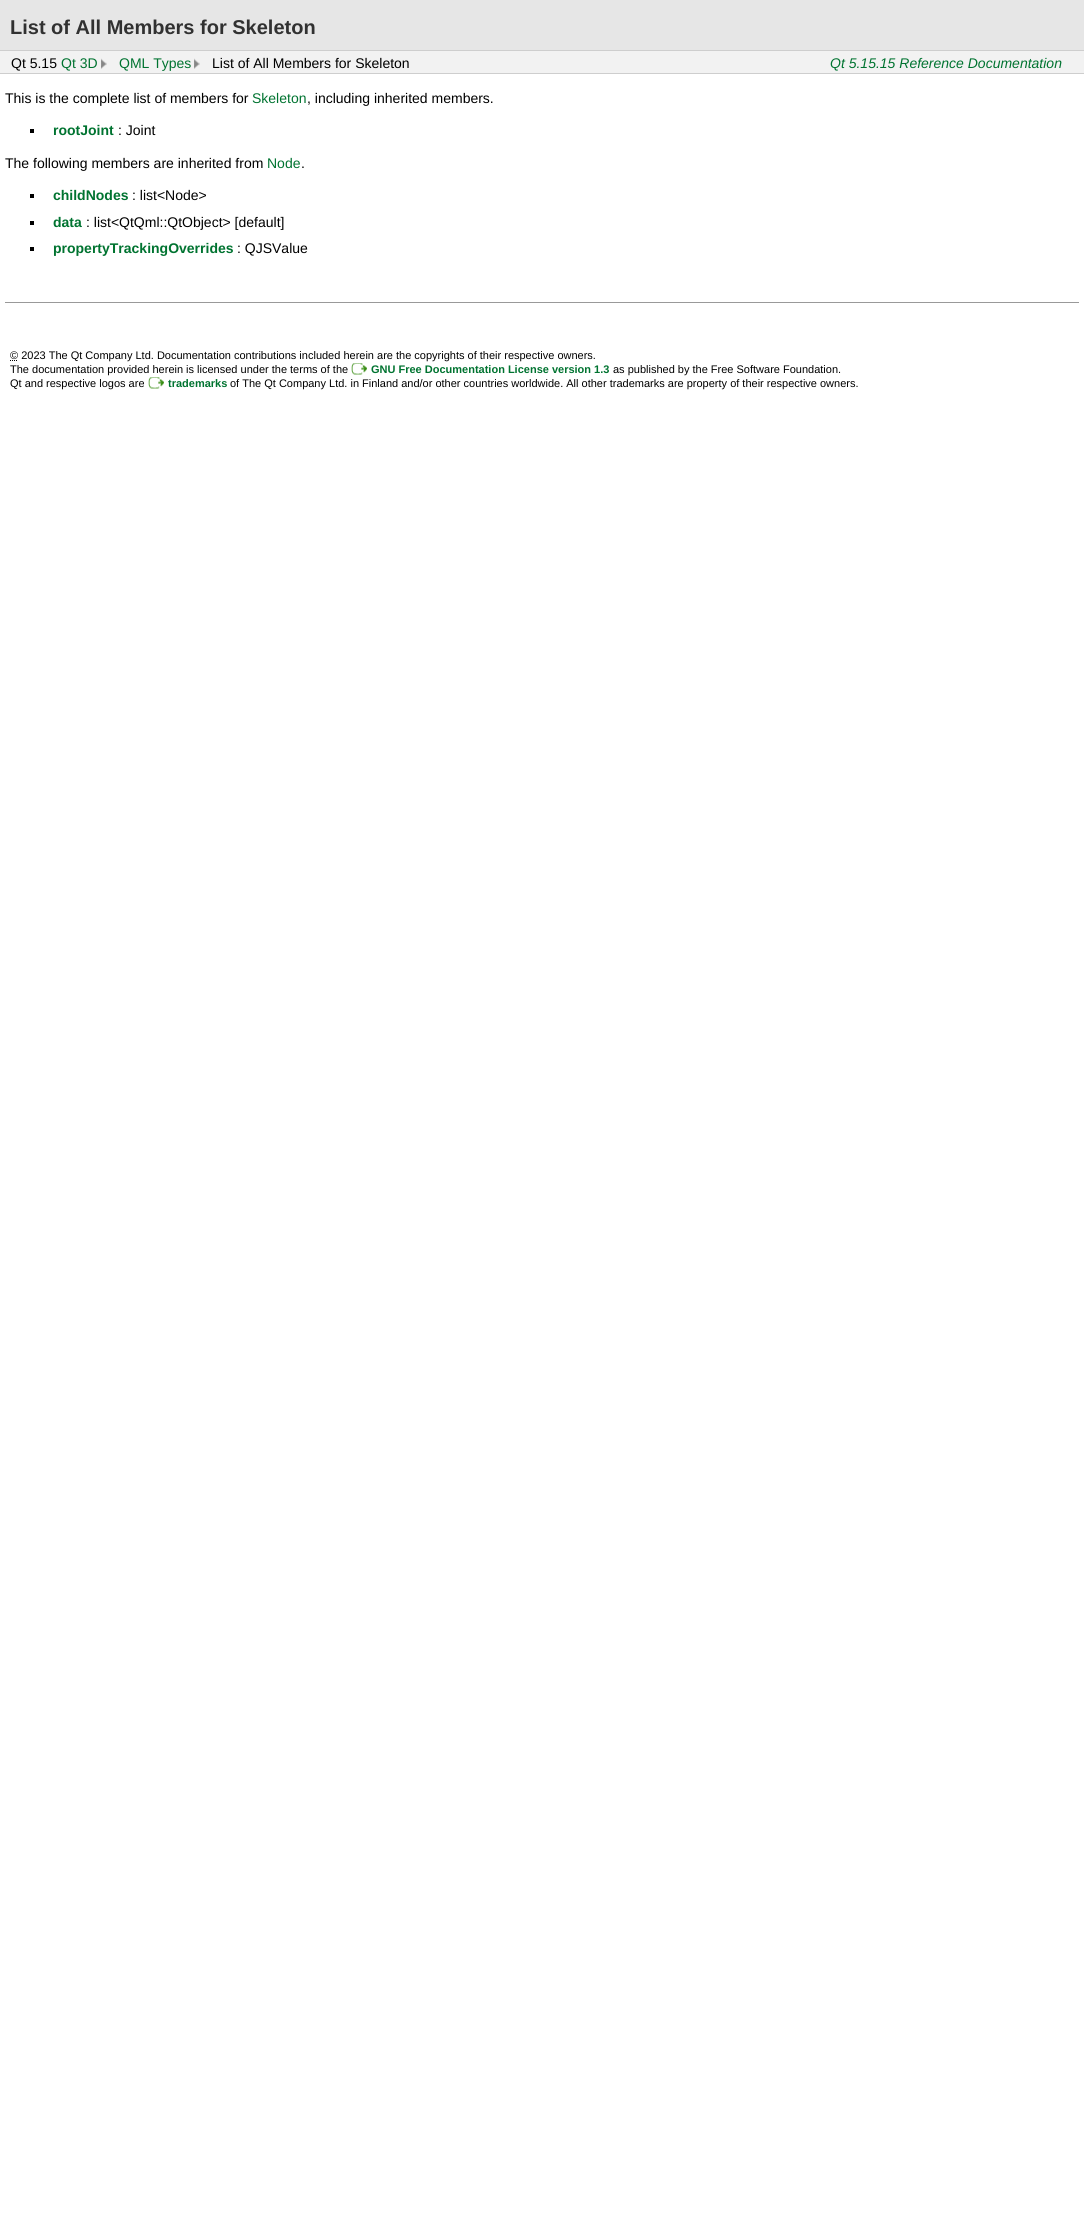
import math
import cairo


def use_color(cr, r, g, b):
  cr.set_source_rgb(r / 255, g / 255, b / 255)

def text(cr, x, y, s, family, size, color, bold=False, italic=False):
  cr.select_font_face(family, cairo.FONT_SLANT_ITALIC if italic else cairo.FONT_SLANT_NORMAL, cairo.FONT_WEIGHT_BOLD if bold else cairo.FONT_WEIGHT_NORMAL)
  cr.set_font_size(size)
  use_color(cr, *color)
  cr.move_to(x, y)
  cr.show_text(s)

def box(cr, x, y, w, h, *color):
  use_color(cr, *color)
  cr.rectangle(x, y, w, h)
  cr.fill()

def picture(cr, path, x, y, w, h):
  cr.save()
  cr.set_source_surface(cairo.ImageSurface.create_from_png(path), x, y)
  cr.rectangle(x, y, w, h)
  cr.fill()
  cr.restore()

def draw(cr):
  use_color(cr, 255, 255, 255)
  cr.paint()
  box(cr, 0, 0, 1084, 50, 230, 230, 230)
  box(cr, 30, 129, 4, 4, 0, 0, 0)
  box(cr, 30, 194, 4, 4, 0, 0, 0)
  box(cr, 30, 221, 4, 4, 0, 0, 0)
  box(cr, 30, 247, 4, 4, 0, 0, 0)
  box(cr, 0, 51, 1084, 22, 242, 242, 242)
  box(cr, 0, 50, 1084, 1, 206, 206, 206)
  box(cr, 0, 73, 1084, 1, 206, 206, 206)
  picture(cr, "img_01.png", 101, 58, 6, 11)
  picture(cr, "img_01.png", 194, 58, 6, 11)
  box(cr, 5, 302, 1074, 1, 153, 153, 153)
  cr.new_path()
  cr.move_to(10, 360.5)
  cr.line_to(18, 360.5)
  use_color(cr, 0, 0, 0)
  cr.set_line_width(1)
  cr.set_dash([1, 1])
  cr.stroke()
  picture(cr, "img_02.png", 351, 363, 16, 12)
  picture(cr, "img_02.png", 148, 377, 16, 12)
  text(cr, 10, 34, "List of All Members for Skeleton", "Liberation Sans", 20, (49, 49, 49), bold=True)
  text(cr, 5, 103, "This is the complete list of members for", "Liberation Sans", 14, (0, 0, 0))
  text(cr, 252, 103, "Skeleton", "Liberation Sans", 14, (0, 115, 48))
  text(cr, 307, 103, ", including inherited members.", "Liberation Sans", 14, (0, 0, 0))
  text(cr, 53, 135, "rootJoint", "Liberation Sans", 14, (0, 115, 48), bold=True)
  text(cr, 118, 135, ": Joint", "Liberation Sans", 14, (0, 0, 0))
  text(cr, 5, 168, "The following members are inherited from", "Liberation Sans", 14, (0, 0, 0))
  text(cr, 267, 168, "Node", "Liberation Sans", 14, (0, 115, 48))
  text(cr, 301, 168, ".", "Liberation Sans", 14, (0, 0, 0))
  text(cr, 53, 200, "childNodes", "Liberation Sans", 14, (0, 115, 48), bold=True)
  text(cr, 132, 200, ": list<Node>", "Liberation Sans", 14, (0, 0, 0))
  text(cr, 53, 227, "data", "Liberation Sans", 14, (0, 115, 48), bold=True)
  text(cr, 86, 227, ": list<QtQml::QtObject> [default]", "Liberation Sans", 14, (0, 0, 0))
  text(cr, 53, 253, "propertyTrackingOverrides", "Liberation Sans", 14, (0, 115, 48), bold=True)
  text(cr, 237, 253, ": QJSValue", "Liberation Sans", 14, (0, 0, 0))
  text(cr, 11, 68, "Qt 5.15", "Liberation Sans", 14, (0, 0, 0))
  text(cr, 61, 68, "Qt 3D", "Liberation Sans", 14, (0, 115, 48))
  text(cr, 119, 68, "QML Types", "Liberation Sans", 14, (0, 115, 48))
  text(cr, 212, 68, "List of All Members for Skeleton", "Liberation Sans", 14, (0, 0, 0))
  text(cr, 830, 68, "Qt 5.15.15 Reference Documentation", "Liberation Sans", 14, (0, 115, 48), italic=True)
  text(cr, 10, 359, "© 2023 The Qt Company Ltd. Documentation contributions included herein are the copyrights of their respective owners.", "Liberation Sans", 11, (0, 0, 0))
  text(cr, 10, 373, "The documentation provided herein is licensed under the terms of the", "Liberation Sans", 11, (0, 0, 0))
  text(cr, 371, 373, "GNU Free Documentation License version 1.3", "Liberation Sans", 11, (0, 115, 48), bold=True)
  text(cr, 613, 373, "as published by the Free Software Foundation.", "Liberation Sans", 11, (0, 0, 0))
  text(cr, 10, 387, "Qt and respective logos are", "Liberation Sans", 11, (0, 0, 0))
  text(cr, 168, 387, "trademarks", "Liberation Sans", 11, (0, 115, 48), bold=True)
  text(cr, 230, 387, "of The Qt Company Ltd. in Finland and/or other countries worldwide. All other trademarks are property of their respective owners.", "Liberation Sans", 11, (0, 0, 0))


surface = cairo.ImageSurface(cairo.FORMAT_RGB24, 1084, 2232)
cr = cairo.Context(surface)
options = cairo.FontOptions()
options.set_hint_metrics(cairo.HINT_METRICS_OFF)
options.set_hint_style(cairo.HINT_STYLE_NONE)
cr.set_font_options(options)
cr.set_miter_limit(4)
draw(cr)
surface.write_to_png("out.png")
